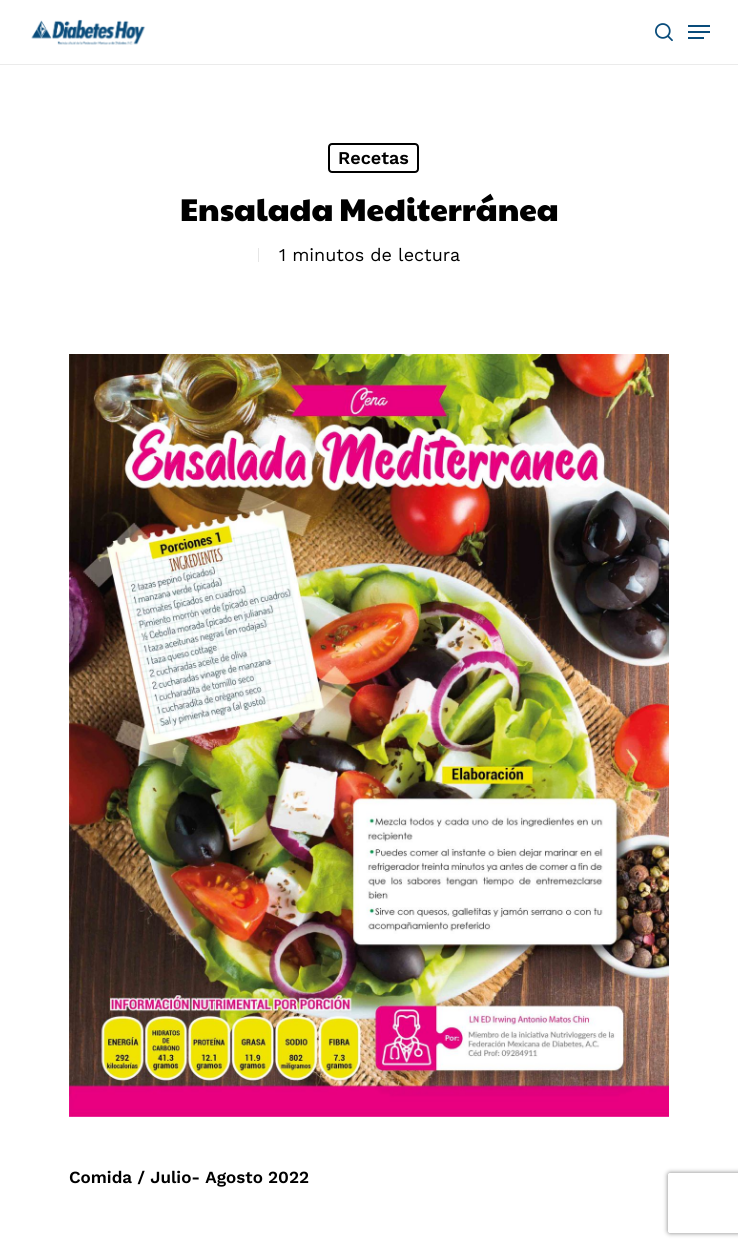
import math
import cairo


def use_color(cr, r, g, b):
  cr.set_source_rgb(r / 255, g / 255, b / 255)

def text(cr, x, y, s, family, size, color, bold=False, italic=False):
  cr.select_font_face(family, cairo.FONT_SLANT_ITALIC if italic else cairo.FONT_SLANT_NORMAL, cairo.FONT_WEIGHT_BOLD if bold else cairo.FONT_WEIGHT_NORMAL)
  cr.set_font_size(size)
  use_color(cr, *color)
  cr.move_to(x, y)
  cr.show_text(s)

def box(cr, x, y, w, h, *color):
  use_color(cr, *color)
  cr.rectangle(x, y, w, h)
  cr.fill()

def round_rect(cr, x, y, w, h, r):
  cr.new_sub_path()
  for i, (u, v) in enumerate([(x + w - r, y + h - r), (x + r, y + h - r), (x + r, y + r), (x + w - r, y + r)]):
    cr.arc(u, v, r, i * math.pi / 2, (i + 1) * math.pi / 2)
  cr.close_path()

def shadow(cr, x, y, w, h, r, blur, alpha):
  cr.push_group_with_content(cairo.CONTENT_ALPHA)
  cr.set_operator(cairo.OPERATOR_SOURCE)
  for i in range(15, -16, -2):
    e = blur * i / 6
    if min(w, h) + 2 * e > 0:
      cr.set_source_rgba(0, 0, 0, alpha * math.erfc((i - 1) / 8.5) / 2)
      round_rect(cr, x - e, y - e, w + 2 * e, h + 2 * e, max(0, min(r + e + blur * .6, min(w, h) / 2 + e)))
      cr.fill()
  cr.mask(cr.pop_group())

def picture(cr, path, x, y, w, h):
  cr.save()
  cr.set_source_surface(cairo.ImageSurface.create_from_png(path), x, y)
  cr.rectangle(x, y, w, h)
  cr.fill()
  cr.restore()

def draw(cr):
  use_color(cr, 255, 255, 255)
  cr.paint()
  box(cr, 0, 64, 738, 1, 235, 235, 235)
  picture(cr, "img_01.png", 31, 19, 115, 26)
  picture(cr, "img_02.png", 655, 23, 18, 19)
  box(cr, 688, 25, 22, 2, 9, 76, 123)
  box(cr, 688, 37, 16, 2, 9, 76, 123)
  box(cr, 688, 31, 22, 2, 9, 76, 123)
  round_rect(cr, 329, 144, 89, 28, 3)
  use_color(cr, 0, 0, 0)
  cr.stroke()
  box(cr, 258, 248, 1, 14, 230, 230, 230)
  picture(cr, "img_03.png", 69, 354, 600, 763)
  cr.save()
  cr.set_fill_rule(cairo.FILL_RULE_EVEN_ODD)
  cr.new_path()
  cr.move_to(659, 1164)
  cr.line_to(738, 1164)
  cr.line_to(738, 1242)
  cr.line_to(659, 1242)
  cr.close_path()
  cr.move_to(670, 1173)
  cr.line_to(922, 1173)
  cr.curve_to(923, 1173, 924, 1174, 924, 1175)
  cr.line_to(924, 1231)
  cr.curve_to(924, 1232, 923, 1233, 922, 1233)
  cr.line_to(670, 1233)
  cr.curve_to(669, 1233, 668, 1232, 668, 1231)
  cr.line_to(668, 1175)
  cr.curve_to(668, 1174, 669, 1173, 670, 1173)
  cr.close_path()
  cr.clip()
  use_color(cr, 128, 128, 128)
  shadow(cr, 668, 1173, 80, 60, 2, 2.5, 1)
  cr.restore()
  text(cr, 338, 164, "Recetas", "Work Sans SemiBold", 18, (0, 0, 0))
  text(cr, 180, 221, "Ensalada Mediterránea", "Paytone One", 31.5, (0, 0, 0))
  text(cr, 279, 261, "1 minutos de lectura", "Work Sans", 18, (0, 0, 0))
  text(cr, 69, 1183, "Comida / Julio- Agosto 2022", "Work Sans SemiBold", 17, (0, 0, 0))


surface = cairo.ImageSurface(cairo.FORMAT_RGB24, 738, 1247)
cr = cairo.Context(surface)
options = cairo.FontOptions()
options.set_hint_metrics(cairo.HINT_METRICS_OFF)
options.set_hint_style(cairo.HINT_STYLE_NONE)
cr.set_font_options(options)
cr.set_miter_limit(4)
draw(cr)
surface.write_to_png("out.png")
